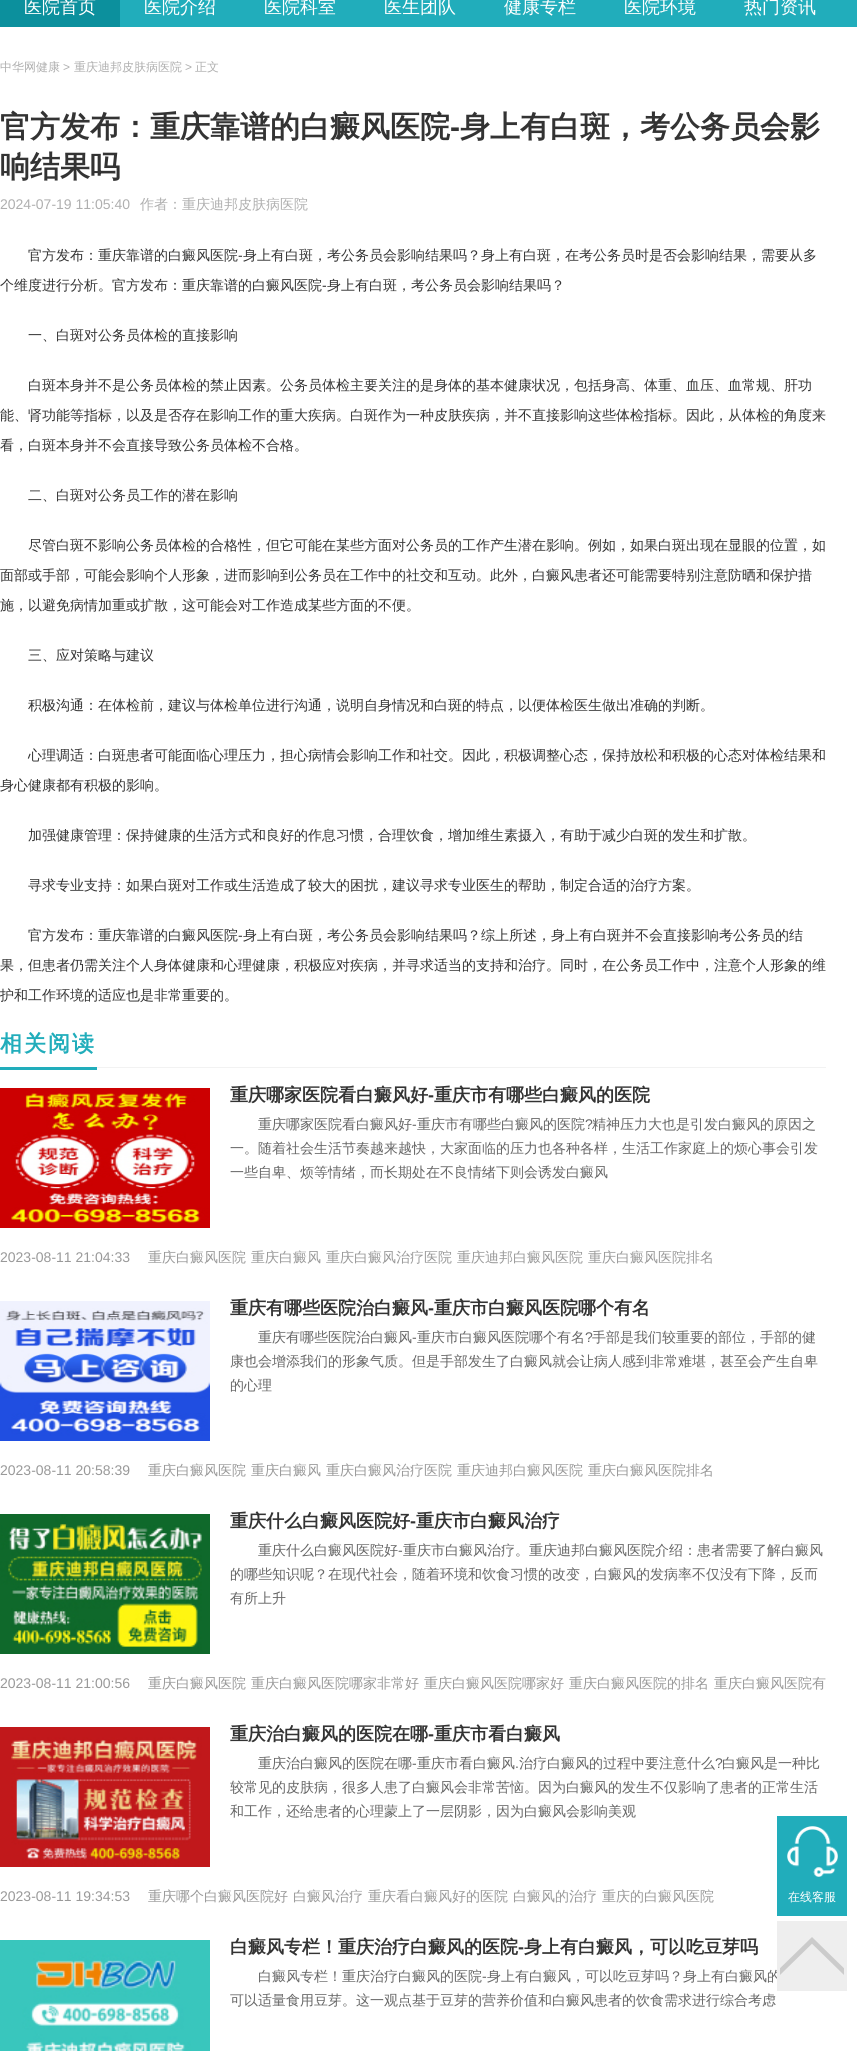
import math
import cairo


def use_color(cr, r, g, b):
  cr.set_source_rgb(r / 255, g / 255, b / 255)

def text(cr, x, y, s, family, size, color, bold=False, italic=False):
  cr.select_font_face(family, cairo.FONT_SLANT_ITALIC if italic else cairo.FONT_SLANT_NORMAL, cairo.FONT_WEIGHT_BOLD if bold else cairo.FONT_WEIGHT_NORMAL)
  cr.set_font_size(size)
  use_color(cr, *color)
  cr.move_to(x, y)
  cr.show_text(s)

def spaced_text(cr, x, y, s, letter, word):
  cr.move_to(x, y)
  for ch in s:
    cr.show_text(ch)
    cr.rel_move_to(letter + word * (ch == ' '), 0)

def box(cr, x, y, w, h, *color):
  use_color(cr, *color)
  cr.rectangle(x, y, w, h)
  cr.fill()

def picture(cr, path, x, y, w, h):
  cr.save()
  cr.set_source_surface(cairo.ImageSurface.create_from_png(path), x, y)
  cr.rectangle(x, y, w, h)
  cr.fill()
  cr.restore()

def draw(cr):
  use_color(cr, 255, 255, 255)
  cr.paint()
  box(cr, 120, 0, 737, 27, 33, 173, 187)
  box(cr, 0, 0, 120, 27, 12, 144, 157)
  box(cr, 97, 1067, 729, 1, 242, 242, 242)
  box(cr, 0, 1067, 97, 3, 33, 173, 187)
  picture(cr, "img_01.png", 0, 1088, 210, 140)
  picture(cr, "img_02.png", 0, 1301, 210, 140)
  picture(cr, "img_03.png", 0, 1514, 210, 140)
  picture(cr, "img_04.png", 0, 1727, 210, 140)
  picture(cr, "img_05.png", 0, 1940, 210, 111)
  box(cr, 777, 1816, 70, 100, 33, 173, 187)
  picture(cr, "img_06.png", 787, 1826, 51, 51)
  text(cr, 24, 13, "医院首页", "WenQuanYi Zen Hei Medium", 18, (255, 255, 255))
  text(cr, 144, 13, "医院介绍", "WenQuanYi Zen Hei Medium", 18, (255, 255, 255))
  text(cr, 264, 13, "医院科室", "WenQuanYi Zen Hei Medium", 18, (255, 255, 255))
  text(cr, 384, 13, "医生团队", "WenQuanYi Zen Hei Medium", 18, (255, 255, 255))
  text(cr, 504, 13, "健康专栏", "WenQuanYi Zen Hei Medium", 18, (255, 255, 255))
  text(cr, 624, 13, "医院环境", "WenQuanYi Zen Hei Medium", 18, (255, 255, 255))
  text(cr, 744, 13, "热门资讯", "WenQuanYi Zen Hei Medium", 18, (255, 255, 255))
  text(cr, 0, 71, "中华网健康", "WenQuanYi Zen Hei Medium", 12, (175, 175, 175))
  text(cr, 63, 71, ">", "Liberation Sans", 12, (175, 175, 175))
  text(cr, 74, 71, "重庆迪邦皮肤病医院", "WenQuanYi Zen Hei Medium", 12, (175, 175, 175))
  text(cr, 185, 71, ">", "Liberation Sans", 12, (175, 175, 175))
  text(cr, 195, 71, "正文", "WenQuanYi Zen Hei Medium", 12, (175, 175, 175))
  text(cr, 0, 137, "官方发布：重庆靠谱的白癜风医院", "WenQuanYi Zen Hei", 30, (51, 51, 51), bold=True)
  text(cr, 450, 137, "-", "Liberation Sans", 30, (51, 51, 51), bold=True)
  text(cr, 460, 137, "身上有白斑，考公务员会影", "WenQuanYi Zen Hei", 30, (51, 51, 51), bold=True)
  text(cr, 0, 177, "响结果吗", "WenQuanYi Zen Hei", 30, (51, 51, 51), bold=True)
  text(cr, 0, 209, "2024-07-19 11:05:40", "Liberation Sans", 14, (175, 175, 175))
  text(cr, 140, 209, "作者：重庆迪邦皮肤病医院", "WenQuanYi Zen Hei Medium", 14, (175, 175, 175))
  text(cr, 28, 260, "官方发布：重庆靠谱的白癜风医院", "WenQuanYi Zen Hei Medium", 14, (51, 51, 51))
  text(cr, 238, 260, "-", "Liberation Sans", 14, (51, 51, 51))
  text(cr, 243, 260, "身上有白斑，考公务员会影响结果吗？身上有白斑，在考公务员时是否会影响结果，需要从多", "WenQuanYi Zen Hei Medium", 14, (51, 51, 51))
  text(cr, 0, 290, "个维度进行分析。官方发布：重庆靠谱的白癜风医院", "WenQuanYi Zen Hei Medium", 14, (51, 51, 51))
  text(cr, 322, 290, "-", "Liberation Sans", 14, (51, 51, 51))
  text(cr, 327, 290, "身上有白斑，考公务员会影响结果吗？", "WenQuanYi Zen Hei Medium", 14, (51, 51, 51))
  text(cr, 28, 340, "一、白斑对公务员体检的直接影响", "WenQuanYi Zen Hei Medium", 14, (51, 51, 51))
  text(cr, 28, 390, "白斑本身并不是公务员体检的禁止因素。公务员体检主要关注的是身体的基本健康状况，包括身高、体重、血压、血常规、肝功", "WenQuanYi Zen Hei Medium", 14, (51, 51, 51))
  text(cr, 0, 420, "能、肾功能等指标，以及是否存在影响工作的重大疾病。白斑作为一种皮肤疾病，并不直接影响这些体检指标。因此，从体检的角度来", "WenQuanYi Zen Hei Medium", 14, (51, 51, 51))
  text(cr, 0, 450, "看，白斑本身并不会直接导致公务员体检不合格。", "WenQuanYi Zen Hei Medium", 14, (51, 51, 51))
  text(cr, 28, 500, "二、白斑对公务员工作的潜在影响", "WenQuanYi Zen Hei Medium", 14, (51, 51, 51))
  text(cr, 28, 550, "尽管白斑不影响公务员体检的合格性，但它可能在某些方面对公务员的工作产生潜在影响。例如，如果白斑出现在显眼的位置，如", "WenQuanYi Zen Hei Medium", 14, (51, 51, 51))
  text(cr, 0, 580, "面部或手部，可能会影响个人形象，进而影响到公务员在工作中的社交和互动。此外，白癜风患者还可能需要特别注意防晒和保护措", "WenQuanYi Zen Hei Medium", 14, (51, 51, 51))
  text(cr, 0, 610, "施，以避免病情加重或扩散，这可能会对工作造成某些方面的不便。", "WenQuanYi Zen Hei Medium", 14, (51, 51, 51))
  text(cr, 28, 660, "三、应对策略与建议", "WenQuanYi Zen Hei Medium", 14, (51, 51, 51))
  text(cr, 28, 710, "积极沟通：在体检前，建议与体检单位进行沟通，说明自身情况和白斑的特点，以便体检医生做出准确的判断。", "WenQuanYi Zen Hei Medium", 14, (51, 51, 51))
  text(cr, 28, 760, "心理调适：白斑患者可能面临心理压力，担心病情会影响工作和社交。因此，积极调整心态，保持放松和积极的心态对体检结果和", "WenQuanYi Zen Hei Medium", 14, (51, 51, 51))
  text(cr, 0, 790, "身心健康都有积极的影响。", "WenQuanYi Zen Hei Medium", 14, (51, 51, 51))
  text(cr, 28, 840, "加强健康管理：保持健康的生活方式和良好的作息习惯，合理饮食，增加维生素摄入，有助于减少白斑的发生和扩散。", "WenQuanYi Zen Hei Medium", 14, (51, 51, 51))
  text(cr, 28, 890, "寻求专业支持：如果白斑对工作或生活造成了较大的困扰，建议寻求专业医生的帮助，制定合适的治疗方案。", "WenQuanYi Zen Hei Medium", 14, (51, 51, 51))
  text(cr, 28, 940, "官方发布：重庆靠谱的白癜风医院", "WenQuanYi Zen Hei Medium", 14, (51, 51, 51))
  text(cr, 238, 940, "-", "Liberation Sans", 14, (51, 51, 51))
  text(cr, 243, 940, "身上有白斑，考公务员会影响结果吗？综上所述，身上有白斑并不会直接影响考公务员的结", "WenQuanYi Zen Hei Medium", 14, (51, 51, 51))
  text(cr, 0, 970, "果，但患者仍需关注个人身体健康和心理健康，积极应对疾病，并寻求适当的支持和治疗。同时，在公务员工作中，注意个人形象的维", "WenQuanYi Zen Hei Medium", 14, (51, 51, 51))
  text(cr, 0, 1000, "护和工作环境的适应也是非常重要的。", "WenQuanYi Zen Hei Medium", 14, (51, 51, 51))
  cr.select_font_face("WenQuanYi Zen Hei", cairo.FONT_SLANT_NORMAL, cairo.FONT_WEIGHT_BOLD)
  cr.set_font_size(22)
  use_color(cr, 33, 173, 187)
  spaced_text(cr, 0, 1051, "相关阅读", 2, 0)
  text(cr, 230, 1101, "重庆哪家医院看白癜风好", "WenQuanYi Zen Hei", 18, (51, 51, 51), bold=True)
  text(cr, 428, 1101, "-", "Liberation Sans", 18, (51, 51, 51), bold=True)
  text(cr, 434, 1101, "重庆市有哪些白癜风的医院", "WenQuanYi Zen Hei", 18, (51, 51, 51), bold=True)
  text(cr, 258, 1129, "重庆哪家医院看白癜风好", "WenQuanYi Zen Hei Medium", 14, (102, 102, 102))
  text(cr, 412, 1129, "-", "Liberation Sans", 14, (102, 102, 102))
  text(cr, 417, 1129, "重庆市有哪些白癜风的医院", "WenQuanYi Zen Hei Medium", 14, (102, 102, 102))
  text(cr, 585, 1129, "?", "Liberation Sans", 14, (102, 102, 102))
  text(cr, 592, 1129, "精神压力大也是引发白癜风的原因之", "WenQuanYi Zen Hei Medium", 14, (102, 102, 102))
  text(cr, 230, 1153, "一。随着社会生活节奏越来越快，大家面临的压力也各种各样，生活工作家庭上的烦心事会引发", "WenQuanYi Zen Hei Medium", 14, (102, 102, 102))
  text(cr, 230, 1177, "一些自卑、烦等情绪，而长期处在不良情绪下则会诱发白癜风", "WenQuanYi Zen Hei Medium", 14, (102, 102, 102))
  text(cr, 0, 1262, "2023-08-11 21:04:33", "Liberation Sans", 14, (153, 153, 153))
  text(cr, 148, 1262, "重庆白癜风医院", "WenQuanYi Zen Hei Medium", 14, (153, 153, 153))
  text(cr, 251, 1262, "重庆白癜风", "WenQuanYi Zen Hei Medium", 14, (153, 153, 153))
  text(cr, 326, 1262, "重庆白癜风治疗医院", "WenQuanYi Zen Hei Medium", 14, (153, 153, 153))
  text(cr, 457, 1262, "重庆迪邦白癜风医院", "WenQuanYi Zen Hei Medium", 14, (153, 153, 153))
  text(cr, 588, 1262, "重庆白癜风医院排名", "WenQuanYi Zen Hei Medium", 14, (153, 153, 153))
  text(cr, 230, 1314, "重庆有哪些医院治白癜风", "WenQuanYi Zen Hei", 18, (51, 51, 51), bold=True)
  text(cr, 428, 1314, "-", "Liberation Sans", 18, (51, 51, 51), bold=True)
  text(cr, 434, 1314, "重庆市白癜风医院哪个有名", "WenQuanYi Zen Hei", 18, (51, 51, 51), bold=True)
  text(cr, 258, 1342, "重庆有哪些医院治白癜风", "WenQuanYi Zen Hei Medium", 14, (102, 102, 102))
  text(cr, 412, 1342, "-", "Liberation Sans", 14, (102, 102, 102))
  text(cr, 417, 1342, "重庆市白癜风医院哪个有名", "WenQuanYi Zen Hei Medium", 14, (102, 102, 102))
  text(cr, 585, 1342, "?", "Liberation Sans", 14, (102, 102, 102))
  text(cr, 592, 1342, "手部是我们较重要的部位，手部的健", "WenQuanYi Zen Hei Medium", 14, (102, 102, 102))
  text(cr, 230, 1366, "康也会增添我们的形象气质。但是手部发生了白癜风就会让病人感到非常难堪，甚至会产生自卑", "WenQuanYi Zen Hei Medium", 14, (102, 102, 102))
  text(cr, 230, 1390, "的心理", "WenQuanYi Zen Hei Medium", 14, (102, 102, 102))
  text(cr, 0, 1475, "2023-08-11 20:58:39", "Liberation Sans", 14, (153, 153, 153))
  text(cr, 148, 1475, "重庆白癜风医院", "WenQuanYi Zen Hei Medium", 14, (153, 153, 153))
  text(cr, 251, 1475, "重庆白癜风", "WenQuanYi Zen Hei Medium", 14, (153, 153, 153))
  text(cr, 326, 1475, "重庆白癜风治疗医院", "WenQuanYi Zen Hei Medium", 14, (153, 153, 153))
  text(cr, 457, 1475, "重庆迪邦白癜风医院", "WenQuanYi Zen Hei Medium", 14, (153, 153, 153))
  text(cr, 588, 1475, "重庆白癜风医院排名", "WenQuanYi Zen Hei Medium", 14, (153, 153, 153))
  text(cr, 230, 1527, "重庆什么白癜风医院好", "WenQuanYi Zen Hei", 18, (51, 51, 51), bold=True)
  text(cr, 410, 1527, "-", "Liberation Sans", 18, (51, 51, 51), bold=True)
  text(cr, 416, 1527, "重庆市白癜风治疗", "WenQuanYi Zen Hei", 18, (51, 51, 51), bold=True)
  text(cr, 258, 1555, "重庆什么白癜风医院好", "WenQuanYi Zen Hei Medium", 14, (102, 102, 102))
  text(cr, 398, 1555, "-", "Liberation Sans", 14, (102, 102, 102))
  text(cr, 403, 1555, "重庆市白癜风治疗。重庆迪邦白癜风医院介绍：患者需要了解白癜风", "WenQuanYi Zen Hei Medium", 14, (102, 102, 102))
  text(cr, 230, 1579, "的哪些知识呢？在现代社会，随着环境和饮食习惯的改变，白癜风的发病率不仅没有下降，反而", "WenQuanYi Zen Hei Medium", 14, (102, 102, 102))
  text(cr, 230, 1603, "有所上升", "WenQuanYi Zen Hei Medium", 14, (102, 102, 102))
  text(cr, 0, 1688, "2023-08-11 21:00:56", "Liberation Sans", 14, (153, 153, 153))
  text(cr, 148, 1688, "重庆白癜风医院", "WenQuanYi Zen Hei Medium", 14, (153, 153, 153))
  text(cr, 251, 1688, "重庆白癜风医院哪家非常好", "WenQuanYi Zen Hei Medium", 14, (153, 153, 153))
  text(cr, 424, 1688, "重庆白癜风医院哪家好", "WenQuanYi Zen Hei Medium", 14, (153, 153, 153))
  text(cr, 569, 1688, "重庆白癜风医院的排名", "WenQuanYi Zen Hei Medium", 14, (153, 153, 153))
  text(cr, 714, 1688, "重庆白癜风医院有", "WenQuanYi Zen Hei Medium", 14, (153, 153, 153))
  text(cr, 230, 1740, "重庆治白癜风的医院在哪", "WenQuanYi Zen Hei", 18, (51, 51, 51), bold=True)
  text(cr, 428, 1740, "-", "Liberation Sans", 18, (51, 51, 51), bold=True)
  text(cr, 434, 1740, "重庆市看白癜风", "WenQuanYi Zen Hei", 18, (51, 51, 51), bold=True)
  text(cr, 258, 1768, "重庆治白癜风的医院在哪", "WenQuanYi Zen Hei Medium", 14, (102, 102, 102))
  text(cr, 412, 1768, "-", "Liberation Sans", 14, (102, 102, 102))
  text(cr, 417, 1768, "重庆市看白癜风", "WenQuanYi Zen Hei Medium", 14, (102, 102, 102))
  text(cr, 519, 1768, "治疗白癜风的过程中要注意什么", "WenQuanYi Zen Hei Medium", 14, (102, 102, 102))
  text(cr, 715, 1768, "?", "Liberation Sans", 14, (102, 102, 102))
  text(cr, 722, 1768, "白癜风是一种比", "WenQuanYi Zen Hei Medium", 14, (102, 102, 102))
  text(cr, 515, 1768, ".", "Liberation Sans", 14, (102, 102, 102))
  text(cr, 230, 1792, "较常见的皮肤病，很多人患了白癜风会非常苦恼。因为白癜风的发生不仅影响了患者的正常生活", "WenQuanYi Zen Hei Medium", 14, (102, 102, 102))
  text(cr, 230, 1816, "和工作，还给患者的心理蒙上了一层阴影，因为白癜风会影响美观", "WenQuanYi Zen Hei Medium", 14, (102, 102, 102))
  text(cr, 0, 1901, "2023-08-11 19:34:53", "Liberation Sans", 14, (153, 153, 153))
  text(cr, 148, 1901, "重庆哪个白癜风医院好", "WenQuanYi Zen Hei Medium", 14, (153, 153, 153))
  text(cr, 293, 1901, "白癜风治疗", "WenQuanYi Zen Hei Medium", 14, (153, 153, 153))
  text(cr, 368, 1901, "重庆看白癜风好的医院", "WenQuanYi Zen Hei Medium", 14, (153, 153, 153))
  text(cr, 513, 1901, "白癜风的治疗", "WenQuanYi Zen Hei Medium", 14, (153, 153, 153))
  text(cr, 602, 1901, "重庆的白癜风医院", "WenQuanYi Zen Hei Medium", 14, (153, 153, 153))
  text(cr, 230, 1953, "白癜风专栏！重庆治疗白癜风的医院", "WenQuanYi Zen Hei", 18, (51, 51, 51), bold=True)
  text(cr, 518, 1953, "-", "Liberation Sans", 18, (51, 51, 51), bold=True)
  text(cr, 524, 1953, "身上有白癜风，可以吃豆芽吗", "WenQuanYi Zen Hei", 18, (51, 51, 51), bold=True)
  text(cr, 258, 1981, "白癜风专栏！重庆治疗白癜风的医院", "WenQuanYi Zen Hei Medium", 14, (102, 102, 102))
  text(cr, 482, 1981, "-", "Liberation Sans", 14, (102, 102, 102))
  text(cr, 487, 1981, "身上有白癜风，可以吃豆芽吗？身上有白癜风的", "WenQuanYi Zen Hei Medium", 14, (102, 102, 102))
  text(cr, 230, 2005, "可以适量食用豆芽。这一观点基于豆芽的营养价值和白癜风患者的饮食需求进行综合考虑", "WenQuanYi Zen Hei Medium", 14, (102, 102, 102))
  text(cr, 788, 1901, "在线客服", "WenQuanYi Zen Hei Medium", 12, (255, 255, 255))
  box(cr, 777, 1921, 70, 70, 238, 238, 238)
  picture(cr, "img_07.png", 780, 1937, 64, 38)


surface = cairo.ImageSurface(cairo.FORMAT_RGB24, 857, 2051)
cr = cairo.Context(surface)
options = cairo.FontOptions()
options.set_hint_metrics(cairo.HINT_METRICS_OFF)
options.set_hint_style(cairo.HINT_STYLE_NONE)
cr.set_font_options(options)
cr.set_miter_limit(4)
draw(cr)
surface.write_to_png("out.png")
